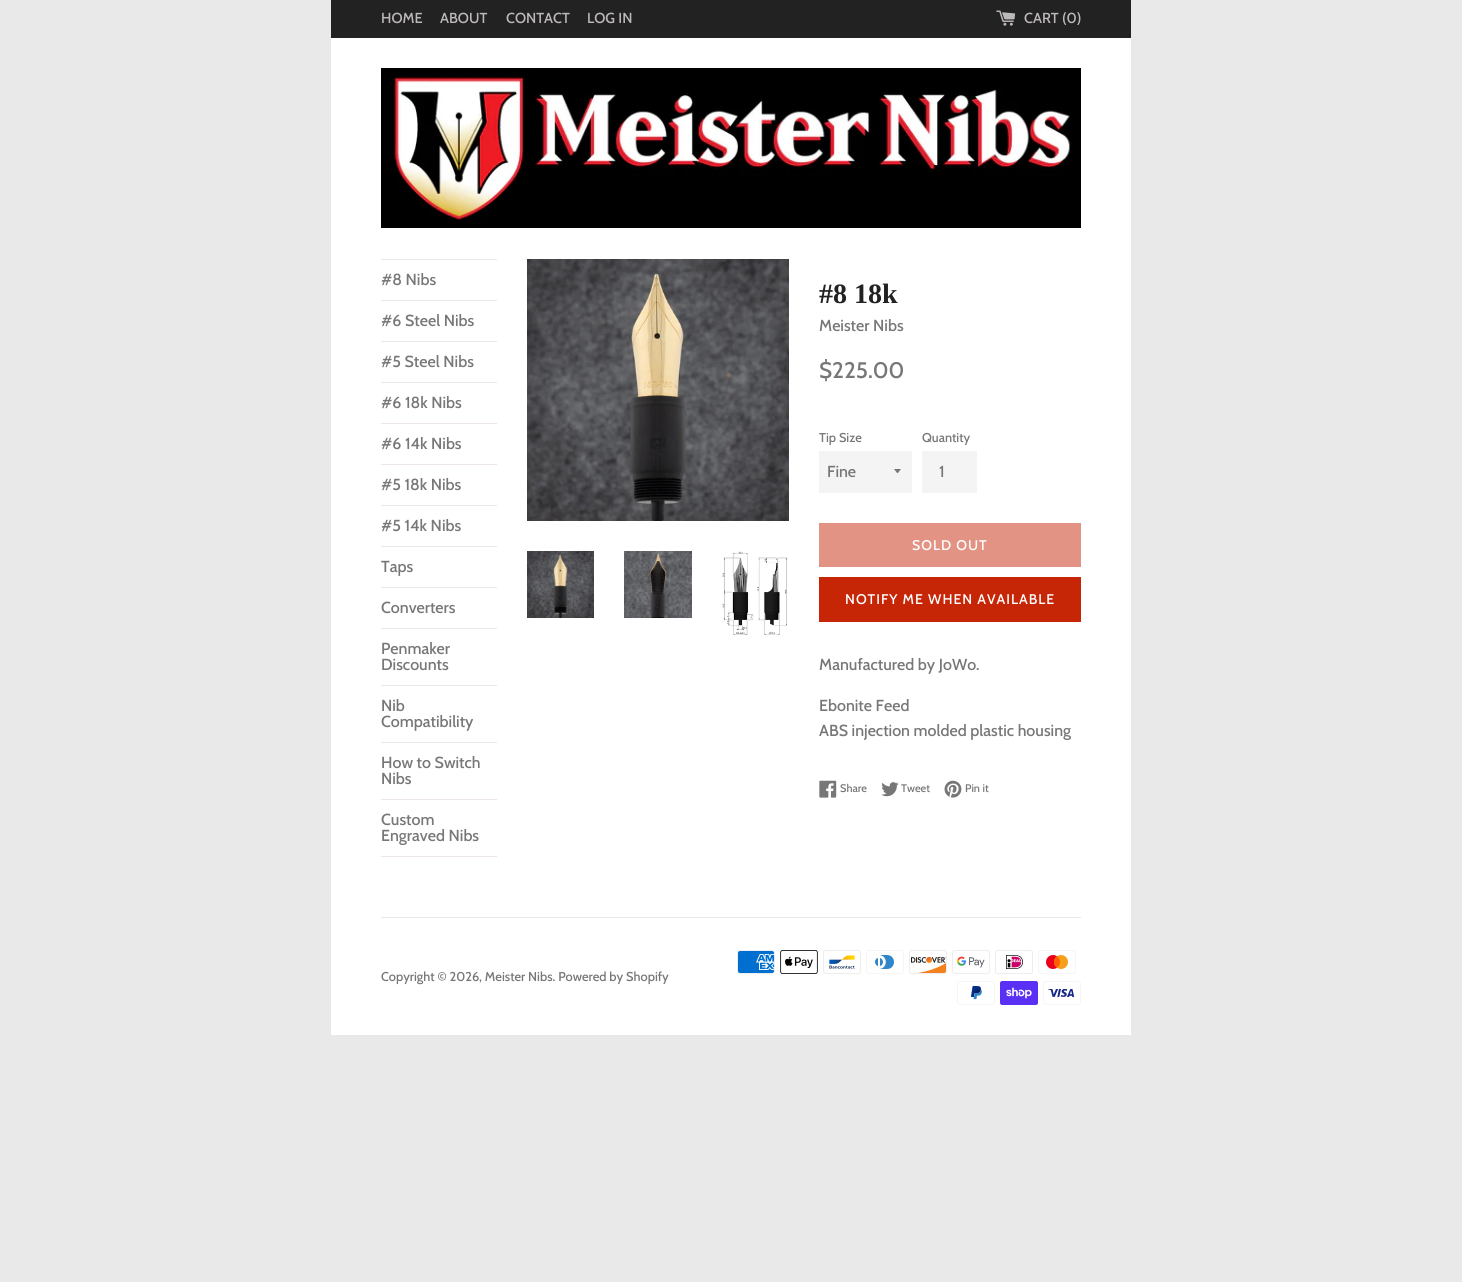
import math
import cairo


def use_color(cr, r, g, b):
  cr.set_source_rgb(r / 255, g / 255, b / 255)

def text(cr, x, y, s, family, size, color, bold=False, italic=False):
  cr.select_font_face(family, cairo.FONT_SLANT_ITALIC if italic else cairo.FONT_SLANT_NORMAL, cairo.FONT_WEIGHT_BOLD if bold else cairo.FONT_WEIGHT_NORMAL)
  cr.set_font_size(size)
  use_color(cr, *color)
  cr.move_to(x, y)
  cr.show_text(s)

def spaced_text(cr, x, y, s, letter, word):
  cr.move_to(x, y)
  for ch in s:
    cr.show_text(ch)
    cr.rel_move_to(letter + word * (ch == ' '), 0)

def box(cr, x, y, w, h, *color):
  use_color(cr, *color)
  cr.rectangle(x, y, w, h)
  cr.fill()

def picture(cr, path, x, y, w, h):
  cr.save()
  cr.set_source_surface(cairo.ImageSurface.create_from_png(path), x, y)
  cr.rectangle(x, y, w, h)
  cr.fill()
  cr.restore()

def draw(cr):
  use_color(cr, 233, 233, 233)
  cr.paint()
  box(cr, 331, 0, 800, 38, 34, 34, 34)
  picture(cr, "img_01.png", 996, 10, 20, 16)
  box(cr, 331, 38, 800, 997, 255, 255, 255)
  picture(cr, "img_02.png", 381, 68, 700, 160)
  box(cr, 381, 259, 116, 1, 237, 232, 231)
  box(cr, 381, 300, 116, 1, 237, 232, 231)
  box(cr, 381, 341, 116, 1, 237, 232, 231)
  box(cr, 381, 382, 116, 1, 237, 232, 231)
  box(cr, 381, 423, 116, 1, 237, 232, 231)
  box(cr, 381, 464, 116, 1, 237, 232, 231)
  box(cr, 381, 505, 116, 1, 237, 232, 231)
  box(cr, 381, 546, 116, 1, 237, 232, 231)
  box(cr, 381, 587, 116, 1, 237, 232, 231)
  box(cr, 381, 628, 116, 1, 237, 232, 231)
  box(cr, 381, 685, 116, 1, 237, 232, 231)
  box(cr, 381, 742, 116, 1, 237, 232, 231)
  box(cr, 381, 799, 116, 1, 237, 232, 231)
  box(cr, 381, 856, 116, 1, 237, 232, 231)
  picture(cr, "img_03.png", 527, 259, 262, 262)
  picture(cr, "img_04.png", 527, 551, 67, 67)
  picture(cr, "img_05.png", 624, 551, 68, 67)
  picture(cr, "img_06.png", 722, 551, 66, 84)
  box(cr, 819, 451, 93, 42, 244, 244, 244)
  use_color(cr, 119, 119, 119)
  cr.new_path()
  cr.move_to(894, 469)
  cr.curve_to(898.5, 474.5, 896.5, 474.5, 901, 469)
  cr.close_path()
  cr.fill()
  box(cr, 922, 451, 55, 42, 244, 244, 244)
  box(cr, 819, 523, 262, 44, 227, 147, 131)
  box(cr, 819, 577, 262, 45, 198, 38, 6)
  picture(cr, "img_07.png", 819, 780, 18, 18)
  picture(cr, "img_08.png", 881, 782, 18, 15)
  picture(cr, "img_09.png", 944, 780, 18, 18)
  box(cr, 381, 917, 700, 1, 237, 232, 231)
  picture(cr, "img_10.png", 737, 950, 38, 24)
  picture(cr, "img_11.png", 780, 950, 38, 24)
  picture(cr, "img_12.png", 823, 950, 38, 24)
  picture(cr, "img_13.png", 866, 950, 38, 24)
  picture(cr, "img_14.png", 909, 950, 38, 24)
  picture(cr, "img_15.png", 952, 950, 38, 24)
  picture(cr, "img_16.png", 995, 950, 38, 24)
  picture(cr, "img_17.png", 1038, 950, 38, 24)
  picture(cr, "img_18.png", 957, 981, 38, 24)
  picture(cr, "img_19.png", 1000, 981, 38, 24)
  picture(cr, "img_20.png", 1043, 981, 38, 24)
  text(cr, 381, 23, "HOME", "Cabin Medium", 14.5, (189, 185, 185))
  text(cr, 440, 23, "ABOUT", "Cabin Medium", 14.5, (189, 185, 185))
  text(cr, 506, 23, "CONTACT", "Cabin Medium", 14.5, (189, 185, 185))
  text(cr, 587, 23, "LOG IN", "Cabin Medium", 14.5, (189, 185, 185))
  text(cr, 1024, 23, "CART (0)", "Cabin Medium", 14.5, (189, 185, 185))
  text(cr, 381, 285, "#8 Nibs", "Cabin Medium", 16, (119, 119, 119))
  text(cr, 381, 326, "#6 Steel Nibs", "Cabin Medium", 16, (119, 119, 119))
  text(cr, 381, 367, "#5 Steel Nibs", "Cabin Medium", 16, (119, 119, 119))
  text(cr, 381, 408, "#6 18k Nibs", "Cabin Medium", 16, (119, 119, 119))
  text(cr, 381, 449, "#6 14k Nibs", "Cabin Medium", 16, (119, 119, 119))
  text(cr, 381, 490, "#5 18k Nibs", "Cabin Medium", 16, (119, 119, 119))
  text(cr, 381, 531, "#5 14k Nibs", "Cabin Medium", 16, (119, 119, 119))
  text(cr, 381, 572, "Taps", "Cabin Medium", 16, (119, 119, 119))
  text(cr, 381, 613, "Converters", "Cabin Medium", 16, (119, 119, 119))
  text(cr, 381, 654, "Penmaker", "Cabin Medium", 16, (119, 119, 119))
  text(cr, 381, 670, "Discounts", "Cabin Medium", 16, (119, 119, 119))
  text(cr, 381, 711, "Nib", "Cabin Medium", 16, (119, 119, 119))
  text(cr, 381, 727, "Compatibility", "Cabin Medium", 16, (119, 119, 119))
  text(cr, 381, 768, "How to Switch", "Cabin Medium", 16, (119, 119, 119))
  text(cr, 381, 784, "Nibs", "Cabin Medium", 16, (119, 119, 119))
  text(cr, 381, 825, "Custom", "Cabin Medium", 16, (119, 119, 119))
  text(cr, 381, 841, "Engraved Nibs", "Cabin Medium", 16, (119, 119, 119))
  text(cr, 819, 303, "#8 18k", "Liberation Serif", 28, (34, 34, 34), bold=True)
  text(cr, 819, 331, "Meister Nibs", "Cabin Medium", 16, (119, 119, 119))
  text(cr, 819, 378, "$225.00", "Cabin Medium", 22.5, (119, 119, 119))
  text(cr, 819, 442, "Tip Size", "Cabin Medium", 12.8, (119, 119, 119))
  text(cr, 827, 477, "Fine", "Cabin Medium", 16, (119, 119, 119))
  text(cr, 922, 442, "Quantity", "Cabin Medium", 12.8, (119, 119, 119))
  text(cr, 939, 477, "1", "Cabin Medium", 16, (119, 119, 119))
  cr.set_font_size(14)
  use_color(cr, 255, 255, 255)
  spaced_text(cr, 912, 550, "SOLD OUT", 1, 0)
  spaced_text(cr, 845, 604, "NOTIFY ME WHEN AVAILABLE", 1, 0)
  text(cr, 819, 670, "Manufactured by JoWo.", "Cabin Medium", 16, (119, 119, 119))
  text(cr, 819, 711, "Ebonite Feed", "Cabin Medium", 16, (119, 119, 119))
  text(cr, 819, 736, "ABS injection molded plastic housing", "Cabin Medium", 16, (119, 119, 119))
  text(cr, 840, 792, "Share", "Cabin Medium", 11, (119, 119, 119))
  text(cr, 901, 792, "Tweet", "Cabin Medium", 11, (119, 119, 119))
  text(cr, 965, 792, "Pin it", "Cabin Medium", 11, (119, 119, 119))
  text(cr, 381, 981, "Copyright © 2026, Meister Nibs. Powered by Shopify", "Cabin Medium", 12.8, (119, 119, 119))


surface = cairo.ImageSurface(cairo.FORMAT_RGB24, 1462, 1282)
cr = cairo.Context(surface)
options = cairo.FontOptions()
options.set_hint_metrics(cairo.HINT_METRICS_OFF)
options.set_hint_style(cairo.HINT_STYLE_NONE)
cr.set_font_options(options)
cr.set_miter_limit(4)
draw(cr)
surface.write_to_png("out.png")
